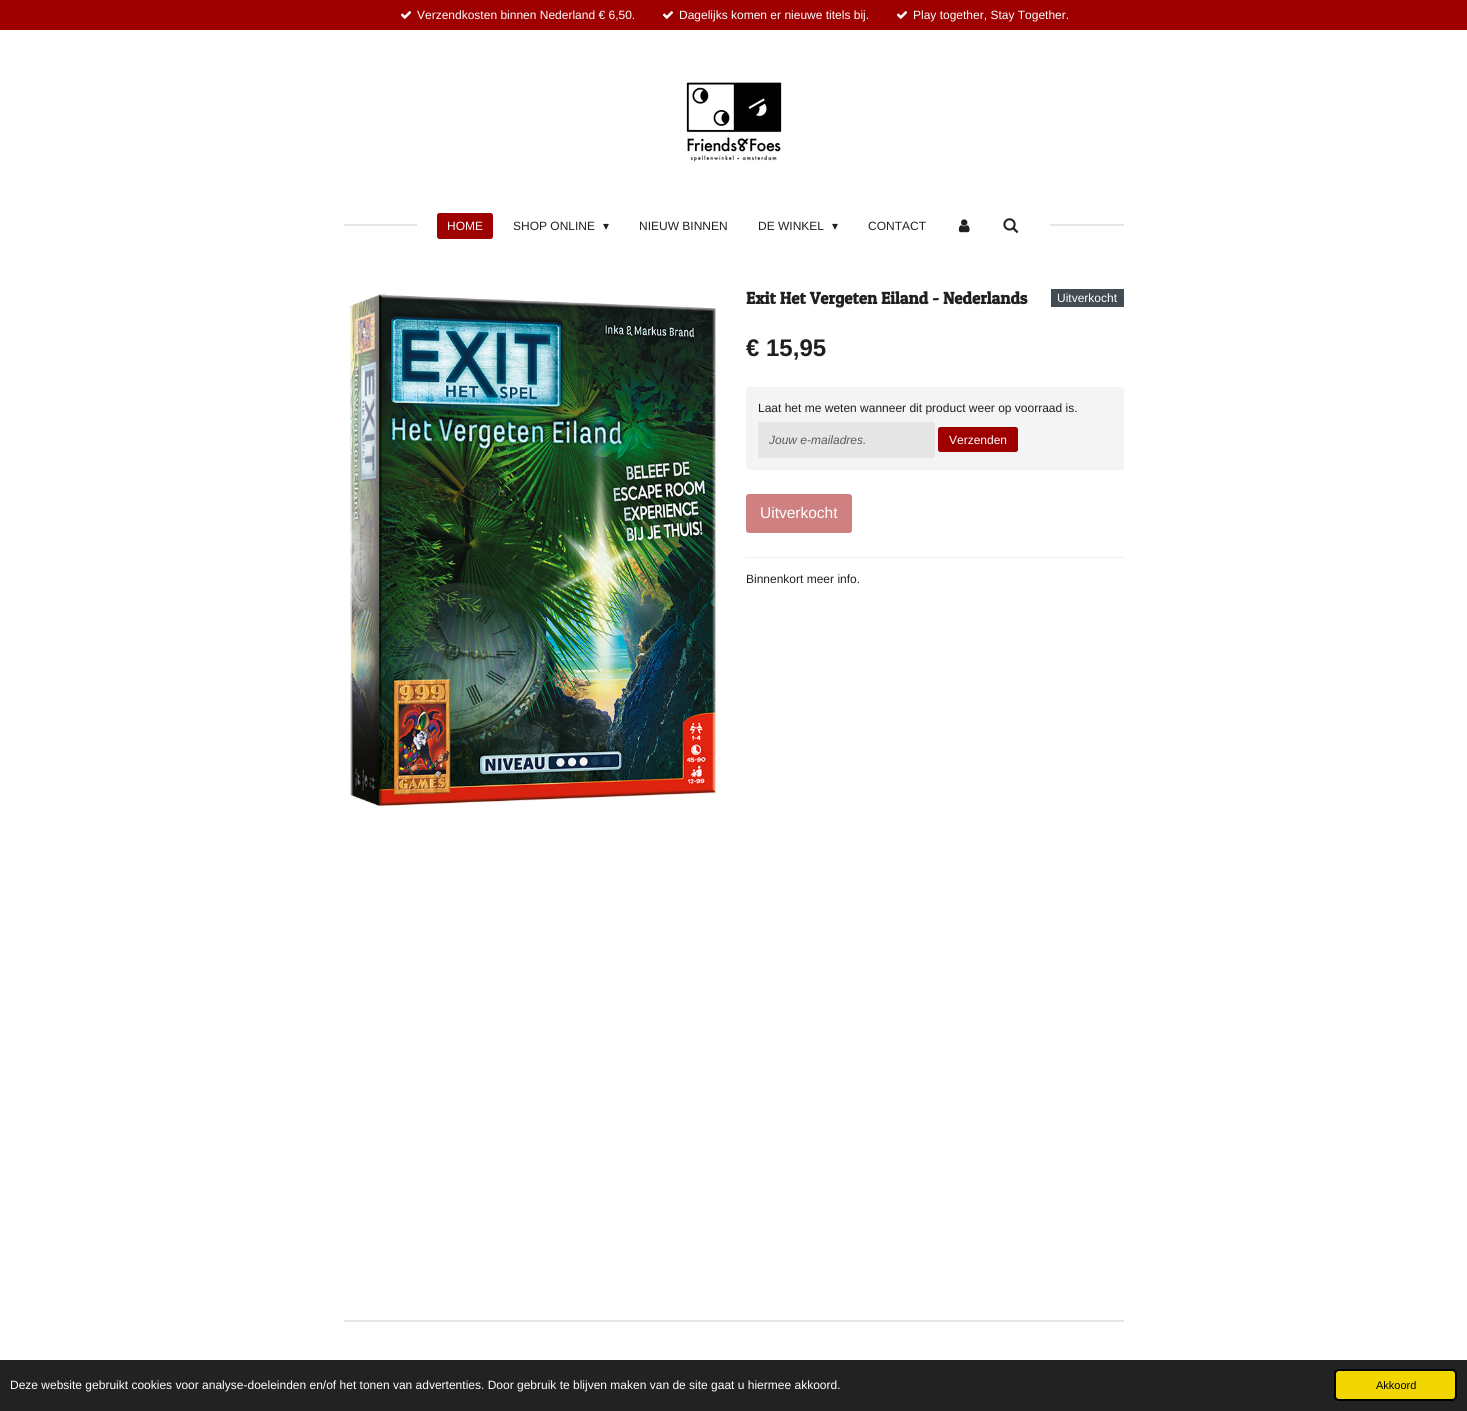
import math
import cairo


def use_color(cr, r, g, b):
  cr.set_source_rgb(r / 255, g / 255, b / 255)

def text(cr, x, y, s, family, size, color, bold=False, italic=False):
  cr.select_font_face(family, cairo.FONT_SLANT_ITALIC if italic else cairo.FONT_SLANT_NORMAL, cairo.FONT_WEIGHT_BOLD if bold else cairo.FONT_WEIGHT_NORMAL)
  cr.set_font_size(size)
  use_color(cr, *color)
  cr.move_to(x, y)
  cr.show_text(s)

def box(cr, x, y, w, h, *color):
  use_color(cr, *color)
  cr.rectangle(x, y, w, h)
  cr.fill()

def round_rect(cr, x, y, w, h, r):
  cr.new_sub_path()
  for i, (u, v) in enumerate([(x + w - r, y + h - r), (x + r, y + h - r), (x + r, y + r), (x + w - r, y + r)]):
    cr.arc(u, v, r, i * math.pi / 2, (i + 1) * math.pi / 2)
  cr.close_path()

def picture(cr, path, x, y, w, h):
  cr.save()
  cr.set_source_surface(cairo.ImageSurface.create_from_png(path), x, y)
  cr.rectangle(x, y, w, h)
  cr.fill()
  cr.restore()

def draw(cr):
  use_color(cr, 255, 255, 255)
  cr.paint()
  box(cr, 0, 0, 1467, 30, 158, 0, 0)
  picture(cr, "img_01.png", 400, 11, 12, 8)
  picture(cr, "img_01.png", 662, 11, 12, 8)
  picture(cr, "img_01.png", 896, 11, 12, 8)
  picture(cr, "img_02.png", 686, 82, 96, 80)
  box(cr, 344, 224, 73, 2, 230, 230, 230)
  use_color(cr, 158, 0, 0)
  round_rect(cr, 437, 213, 56, 26, 2.5)
  cr.fill()
  picture(cr, "img_03.png", 958, 219, 12, 14)
  picture(cr, "img_04.png", 1003, 218, 16, 16)
  box(cr, 1050, 224, 74, 2, 230, 230, 230)
  picture(cr, "img_05.png", 350, 294, 366, 513)
  box(cr, 1051, 289, 73, 18, 66, 76, 81)
  use_color(cr, 244, 244, 244)
  round_rect(cr, 746, 387, 378, 83, 2.5)
  cr.fill()
  use_color(cr, 230, 230, 230)
  round_rect(cr, 758, 422, 177, 36, 2)
  cr.fill()
  use_color(cr, 158, 0, 0)
  round_rect(cr, 938, 427, 80, 25, 2.5)
  cr.fill()
  use_color(cr, 207, 128, 128)
  round_rect(cr, 746, 494, 106, 39, 3)
  cr.fill()
  box(cr, 746, 557, 378, 1, 239, 239, 239)
  box(cr, 344, 1320, 780, 2, 230, 230, 230)
  box(cr, 0, 1360, 1467, 51, 34, 34, 34)
  use_color(cr, 241, 214, 0)
  round_rect(cr, 1335, 1370, 121, 30, 4)
  cr.fill_preserve()
  use_color(cr, 0, 0, 0)
  cr.stroke()
  text(cr, 417, 19, "Verzendkosten binnen Nederland € 6,50.", "Liberation Sans", 12, (255, 255, 255))
  text(cr, 679, 19, "Dagelijks komen er nieuwe titels bij.", "Liberation Sans", 12, (255, 255, 255))
  text(cr, 913, 19, "Play together, Stay Together.", "Liberation Sans", 12, (255, 255, 255))
  text(cr, 447, 230, "HOME", "Liberation Sans", 12, (255, 255, 255))
  text(cr, 513, 230, "SHOP ONLINE", "Liberation Sans", 12, (32, 32, 32))
  text(cr, 603, 230, "▾", "DejaVu Sans", 12, (32, 32, 32))
  text(cr, 639, 230, "NIEUW BINNEN", "Liberation Sans", 12, (32, 32, 32))
  text(cr, 758, 230, "DE WINKEL", "Liberation Sans", 12, (32, 32, 32))
  text(cr, 832, 230, "▾", "DejaVu Sans", 12, (32, 32, 32))
  text(cr, 868, 230, "CONTACT", "Liberation Sans", 12, (32, 32, 32))
  text(cr, 746, 304, "Exit Het Vergeten Eiland - Nederlands", "Patua One", 17, (32, 32, 32), bold=True)
  text(cr, 1057, 302, "Uitverkocht", "Liberation Sans", 12, (255, 255, 255))
  text(cr, 746, 356, "€ 15,95", "Liberation Sans", 24, (32, 32, 32), bold=True)
  text(cr, 758, 412, "Laat het me weten wanneer dit product weer op voorraad is.", "Liberation Sans", 12, (32, 32, 32))
  text(cr, 769, 444, "Jouw e-mailadres.", "Liberation Sans", 12, (91, 91, 91), italic=True)
  text(cr, 949, 444, "Verzenden", "Liberation Sans", 12, (255, 255, 255))
  text(cr, 760, 518, "Uitverkocht", "Liberation Sans", 15.5, (255, 255, 255))
  text(cr, 746, 583, "Binnenkort meer info.", "Liberation Sans", 12, (32, 32, 32))
  text(cr, 10, 1389, "Deze website gebruikt cookies voor analyse-doeleinden en/of het tonen van advertenties. Door gebruik te blijven maken van de site gaat u hiermee akkoord.", "Liberation Sans", 12, (255, 255, 255))
  text(cr, 1376, 1389, "Akkoord", "Liberation Sans", 11, (0, 0, 0))


surface = cairo.ImageSurface(cairo.FORMAT_RGB24, 1467, 1411)
cr = cairo.Context(surface)
options = cairo.FontOptions()
options.set_hint_metrics(cairo.HINT_METRICS_OFF)
options.set_hint_style(cairo.HINT_STYLE_NONE)
cr.set_font_options(options)
cr.set_miter_limit(4)
draw(cr)
surface.write_to_png("out.png")
